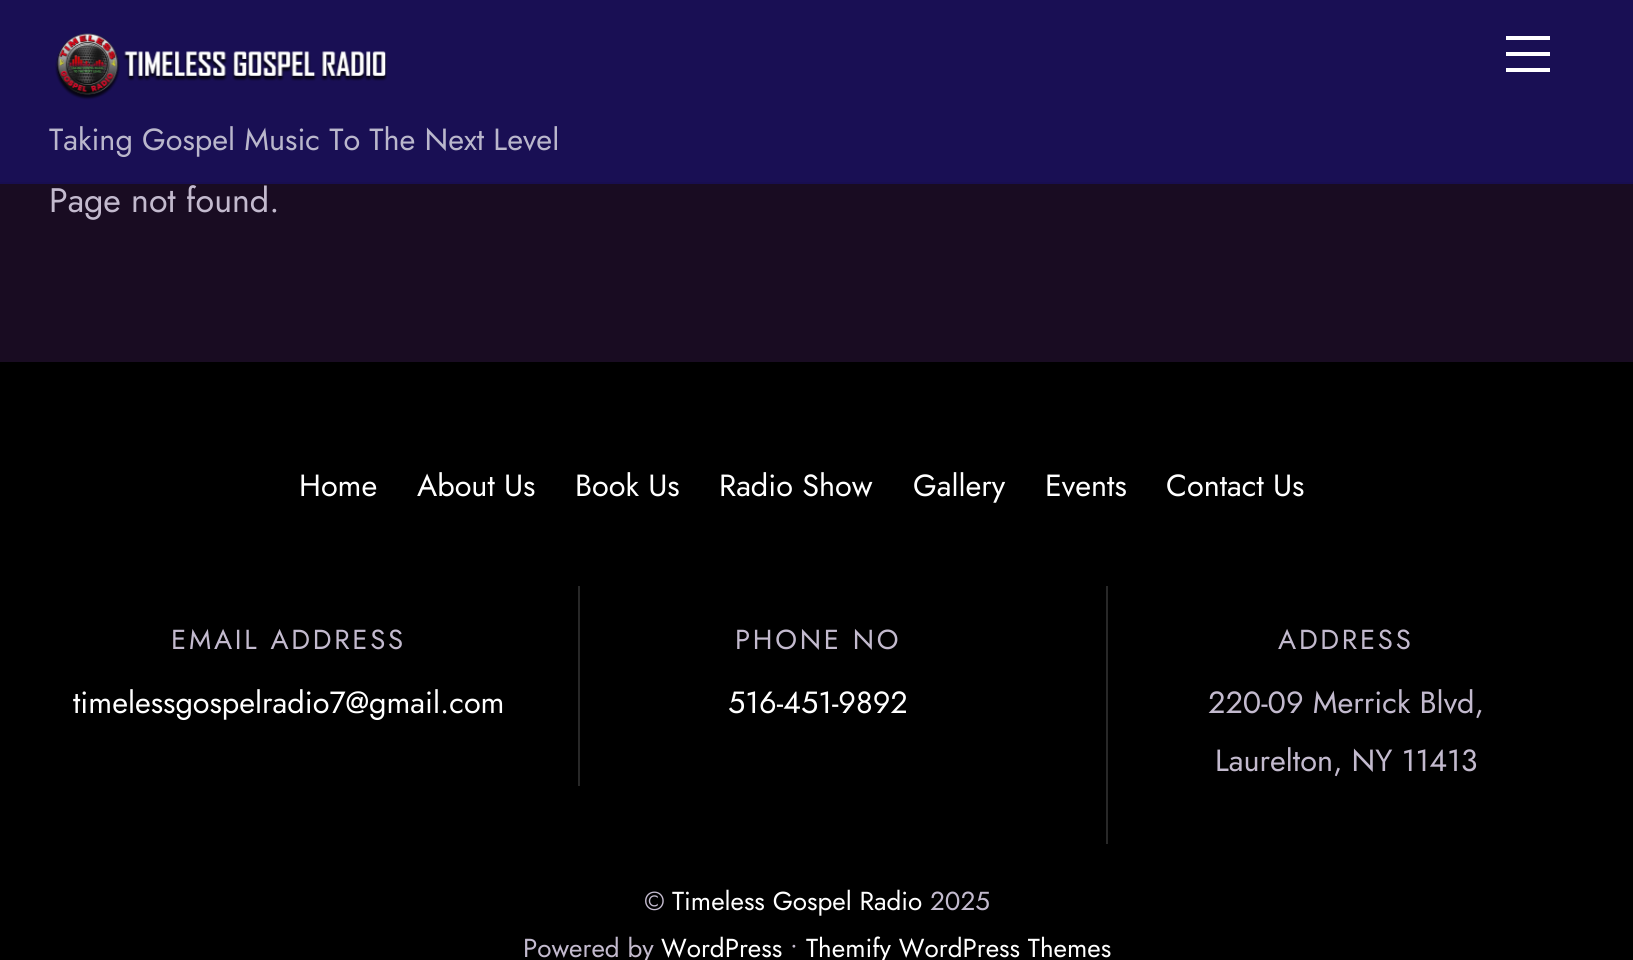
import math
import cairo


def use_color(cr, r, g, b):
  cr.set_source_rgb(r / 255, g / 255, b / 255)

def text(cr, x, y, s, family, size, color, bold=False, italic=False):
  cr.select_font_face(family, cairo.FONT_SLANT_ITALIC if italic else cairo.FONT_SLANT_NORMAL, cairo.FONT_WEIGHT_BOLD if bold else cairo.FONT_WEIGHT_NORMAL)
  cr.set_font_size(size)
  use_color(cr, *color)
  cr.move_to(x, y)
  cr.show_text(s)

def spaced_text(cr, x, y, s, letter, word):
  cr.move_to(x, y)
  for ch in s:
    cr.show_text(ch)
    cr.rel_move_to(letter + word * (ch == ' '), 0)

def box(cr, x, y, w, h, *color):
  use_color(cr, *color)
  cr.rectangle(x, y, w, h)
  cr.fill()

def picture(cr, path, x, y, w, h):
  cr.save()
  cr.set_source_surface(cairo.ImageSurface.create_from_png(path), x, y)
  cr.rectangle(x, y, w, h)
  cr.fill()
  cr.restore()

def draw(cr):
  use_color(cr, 25, 12, 34)
  cr.paint()
  box(cr, 0, 0, 1633, 182, 25, 15, 84)
  box(cr, 0, 182, 1633, 2, 24, 14, 80)
  box(cr, 1506, 68, 44, 4, 255, 255, 255)
  box(cr, 1506, 36, 44, 4, 255, 255, 255)
  box(cr, 1506, 52, 44, 4, 255, 255, 255)
  picture(cr, "img_01.png", 55, 33, 332, 67)
  box(cr, 0, 362, 1633, 598, 0, 0, 0)
  box(cr, 578, 586, 2, 200, 40, 40, 40)
  box(cr, 1106, 586, 2, 258, 40, 40, 40)
  text(cr, 49, 150, "Taking Gospel Music To The Next Level", "Jost", 30.6, (186, 183, 204))
  text(cr, 49, 212, "Page not found.", "Jost", 34, (195, 186, 206))
  text(cr, 299, 496, "Home", "Jost", 30.6, (255, 255, 255))
  text(cr, 417, 496, "About Us", "Jost", 30.6, (255, 255, 255))
  text(cr, 575, 496, "Book Us", "Jost", 30.6, (255, 255, 255))
  text(cr, 719, 496, "Radio Show", "Jost", 30.6, (255, 255, 255))
  text(cr, 913, 496, "Gallery", "Jost", 30.6, (255, 255, 255))
  text(cr, 1045, 496, "Events", "Jost", 30.6, (255, 255, 255))
  text(cr, 1166, 496, "Contact Us", "Jost", 30.6, (255, 255, 255))
  cr.set_font_size(27.5)
  use_color(cr, 195, 186, 206)
  spaced_text(cr, 171, 649, "EMAIL ADDRESS", 2.75, 0)
  text(cr, 73, 713, "timelessgospelradio7@gmail.com", "Jost", 30.6, (255, 255, 255))
  cr.set_font_size(27.5)
  use_color(cr, 195, 186, 206)
  spaced_text(cr, 735, 649, "PHONE NO", 2.75, 0)
  text(cr, 728, 713, "516-451-9892", "Jost", 30.6, (255, 255, 255))
  cr.set_font_size(27.5)
  use_color(cr, 195, 186, 206)
  spaced_text(cr, 1278, 649, "ADDRESS", 2.75, 0)
  text(cr, 1208, 713, "220-09 Merrick Blvd,", "Jost", 30.6, (195, 186, 206))
  text(cr, 1215, 771, "Laurelton, NY 11413", "Jost", 30.6, (195, 186, 206))
  text(cr, 644, 910, "©", "Jost", 26, (195, 186, 206))
  text(cr, 672, 910, "Timeless Gospel Radio", "Jost", 26, (255, 255, 255))
  text(cr, 930, 910, "2025", "Jost", 26, (195, 186, 206))
  text(cr, 523, 957, "Powered by", "Jost", 26, (195, 186, 206))
  text(cr, 661, 957, "WordPress", "Jost", 26, (255, 255, 255))
  text(cr, 790, 957, "•", "Jost", 26, (195, 186, 206))
  text(cr, 806, 957, "Themify WordPress Themes", "Jost", 26, (255, 255, 255))


surface = cairo.ImageSurface(cairo.FORMAT_RGB24, 1633, 960)
cr = cairo.Context(surface)
options = cairo.FontOptions()
options.set_hint_metrics(cairo.HINT_METRICS_OFF)
options.set_hint_style(cairo.HINT_STYLE_NONE)
cr.set_font_options(options)
cr.set_miter_limit(4)
draw(cr)
surface.write_to_png("out.png")
